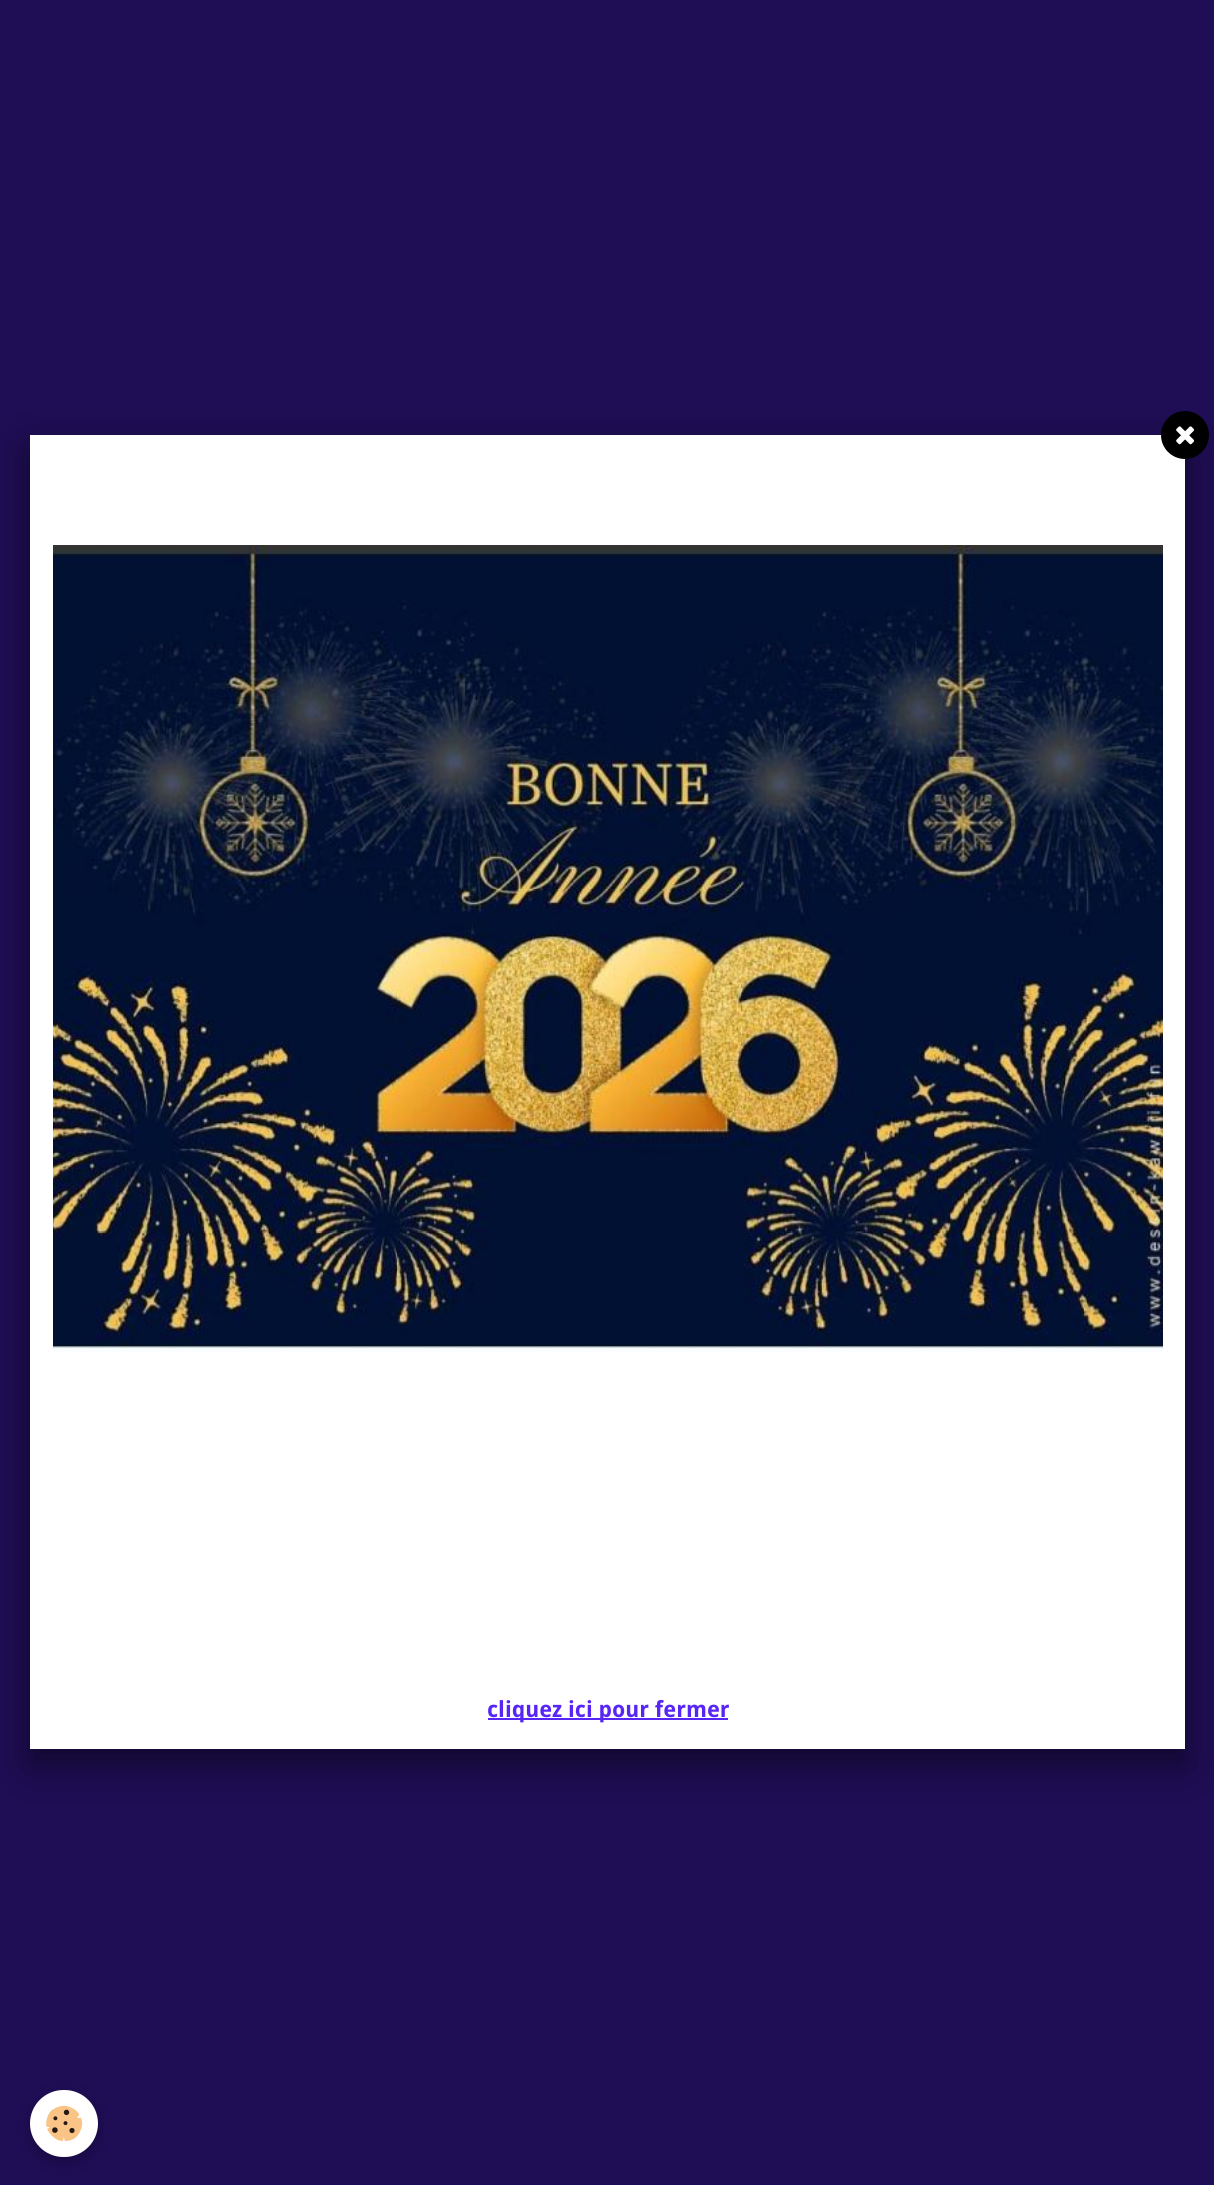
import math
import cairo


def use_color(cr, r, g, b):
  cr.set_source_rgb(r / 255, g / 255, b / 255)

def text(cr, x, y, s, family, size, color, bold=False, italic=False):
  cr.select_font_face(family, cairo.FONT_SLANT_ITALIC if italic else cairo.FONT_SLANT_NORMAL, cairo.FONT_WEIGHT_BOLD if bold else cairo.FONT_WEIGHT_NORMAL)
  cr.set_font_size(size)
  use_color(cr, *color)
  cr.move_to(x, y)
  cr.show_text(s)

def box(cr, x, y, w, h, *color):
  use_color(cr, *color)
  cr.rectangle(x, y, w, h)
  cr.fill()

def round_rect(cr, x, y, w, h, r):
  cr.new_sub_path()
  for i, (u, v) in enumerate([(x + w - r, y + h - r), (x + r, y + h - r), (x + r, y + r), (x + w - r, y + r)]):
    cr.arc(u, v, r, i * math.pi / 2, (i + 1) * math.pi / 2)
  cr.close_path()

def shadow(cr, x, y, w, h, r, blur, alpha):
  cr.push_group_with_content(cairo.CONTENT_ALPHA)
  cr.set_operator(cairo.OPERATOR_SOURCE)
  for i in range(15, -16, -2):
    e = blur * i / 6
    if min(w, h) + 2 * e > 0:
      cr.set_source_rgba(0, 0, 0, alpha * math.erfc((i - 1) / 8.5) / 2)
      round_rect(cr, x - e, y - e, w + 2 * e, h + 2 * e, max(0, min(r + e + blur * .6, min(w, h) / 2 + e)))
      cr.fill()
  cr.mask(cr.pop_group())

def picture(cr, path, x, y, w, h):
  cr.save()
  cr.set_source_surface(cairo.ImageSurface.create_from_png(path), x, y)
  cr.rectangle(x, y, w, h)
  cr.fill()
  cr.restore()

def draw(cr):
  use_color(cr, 31, 13, 85)
  cr.paint()
  use_color(cr, 0, 0, 0)
  shadow(cr, 30, 450, 1155, 1314, 0, 19, 0.5)
  box(cr, 30, 435, 1155, 1314, 255, 255, 255)
  use_color(cr, 0, 0, 0)
  cr.arc(1185, 435, 24, 0, 2 * math.pi)
  cr.fill()
  picture(cr, "img_01.png", 1176, 426, 18, 19)
  picture(cr, "img_02.png", 53, 545, 1110, 807)
  box(cr, 488, 1718, 240, 2, 88, 38, 244)
  use_color(cr, 0, 0, 0)
  shadow(cr, 30, 2094, 68, 68, 34, 7.5, 0.24)
  use_color(cr, 255, 255, 255)
  round_rect(cr, 30, 2090, 68, 67, 33.5)
  cr.fill()
  picture(cr, "img_03.png", 46, 2105, 37, 36)
  text(cr, 487, 1717, "cliquez ici pour fermer", "Droid Sans", 22.25, (88, 38, 244), bold=True)


surface = cairo.ImageSurface(cairo.FORMAT_RGB24, 1214, 2185)
cr = cairo.Context(surface)
options = cairo.FontOptions()
options.set_hint_metrics(cairo.HINT_METRICS_OFF)
options.set_hint_style(cairo.HINT_STYLE_NONE)
cr.set_font_options(options)
cr.set_miter_limit(4)
draw(cr)
surface.write_to_png("out.png")
